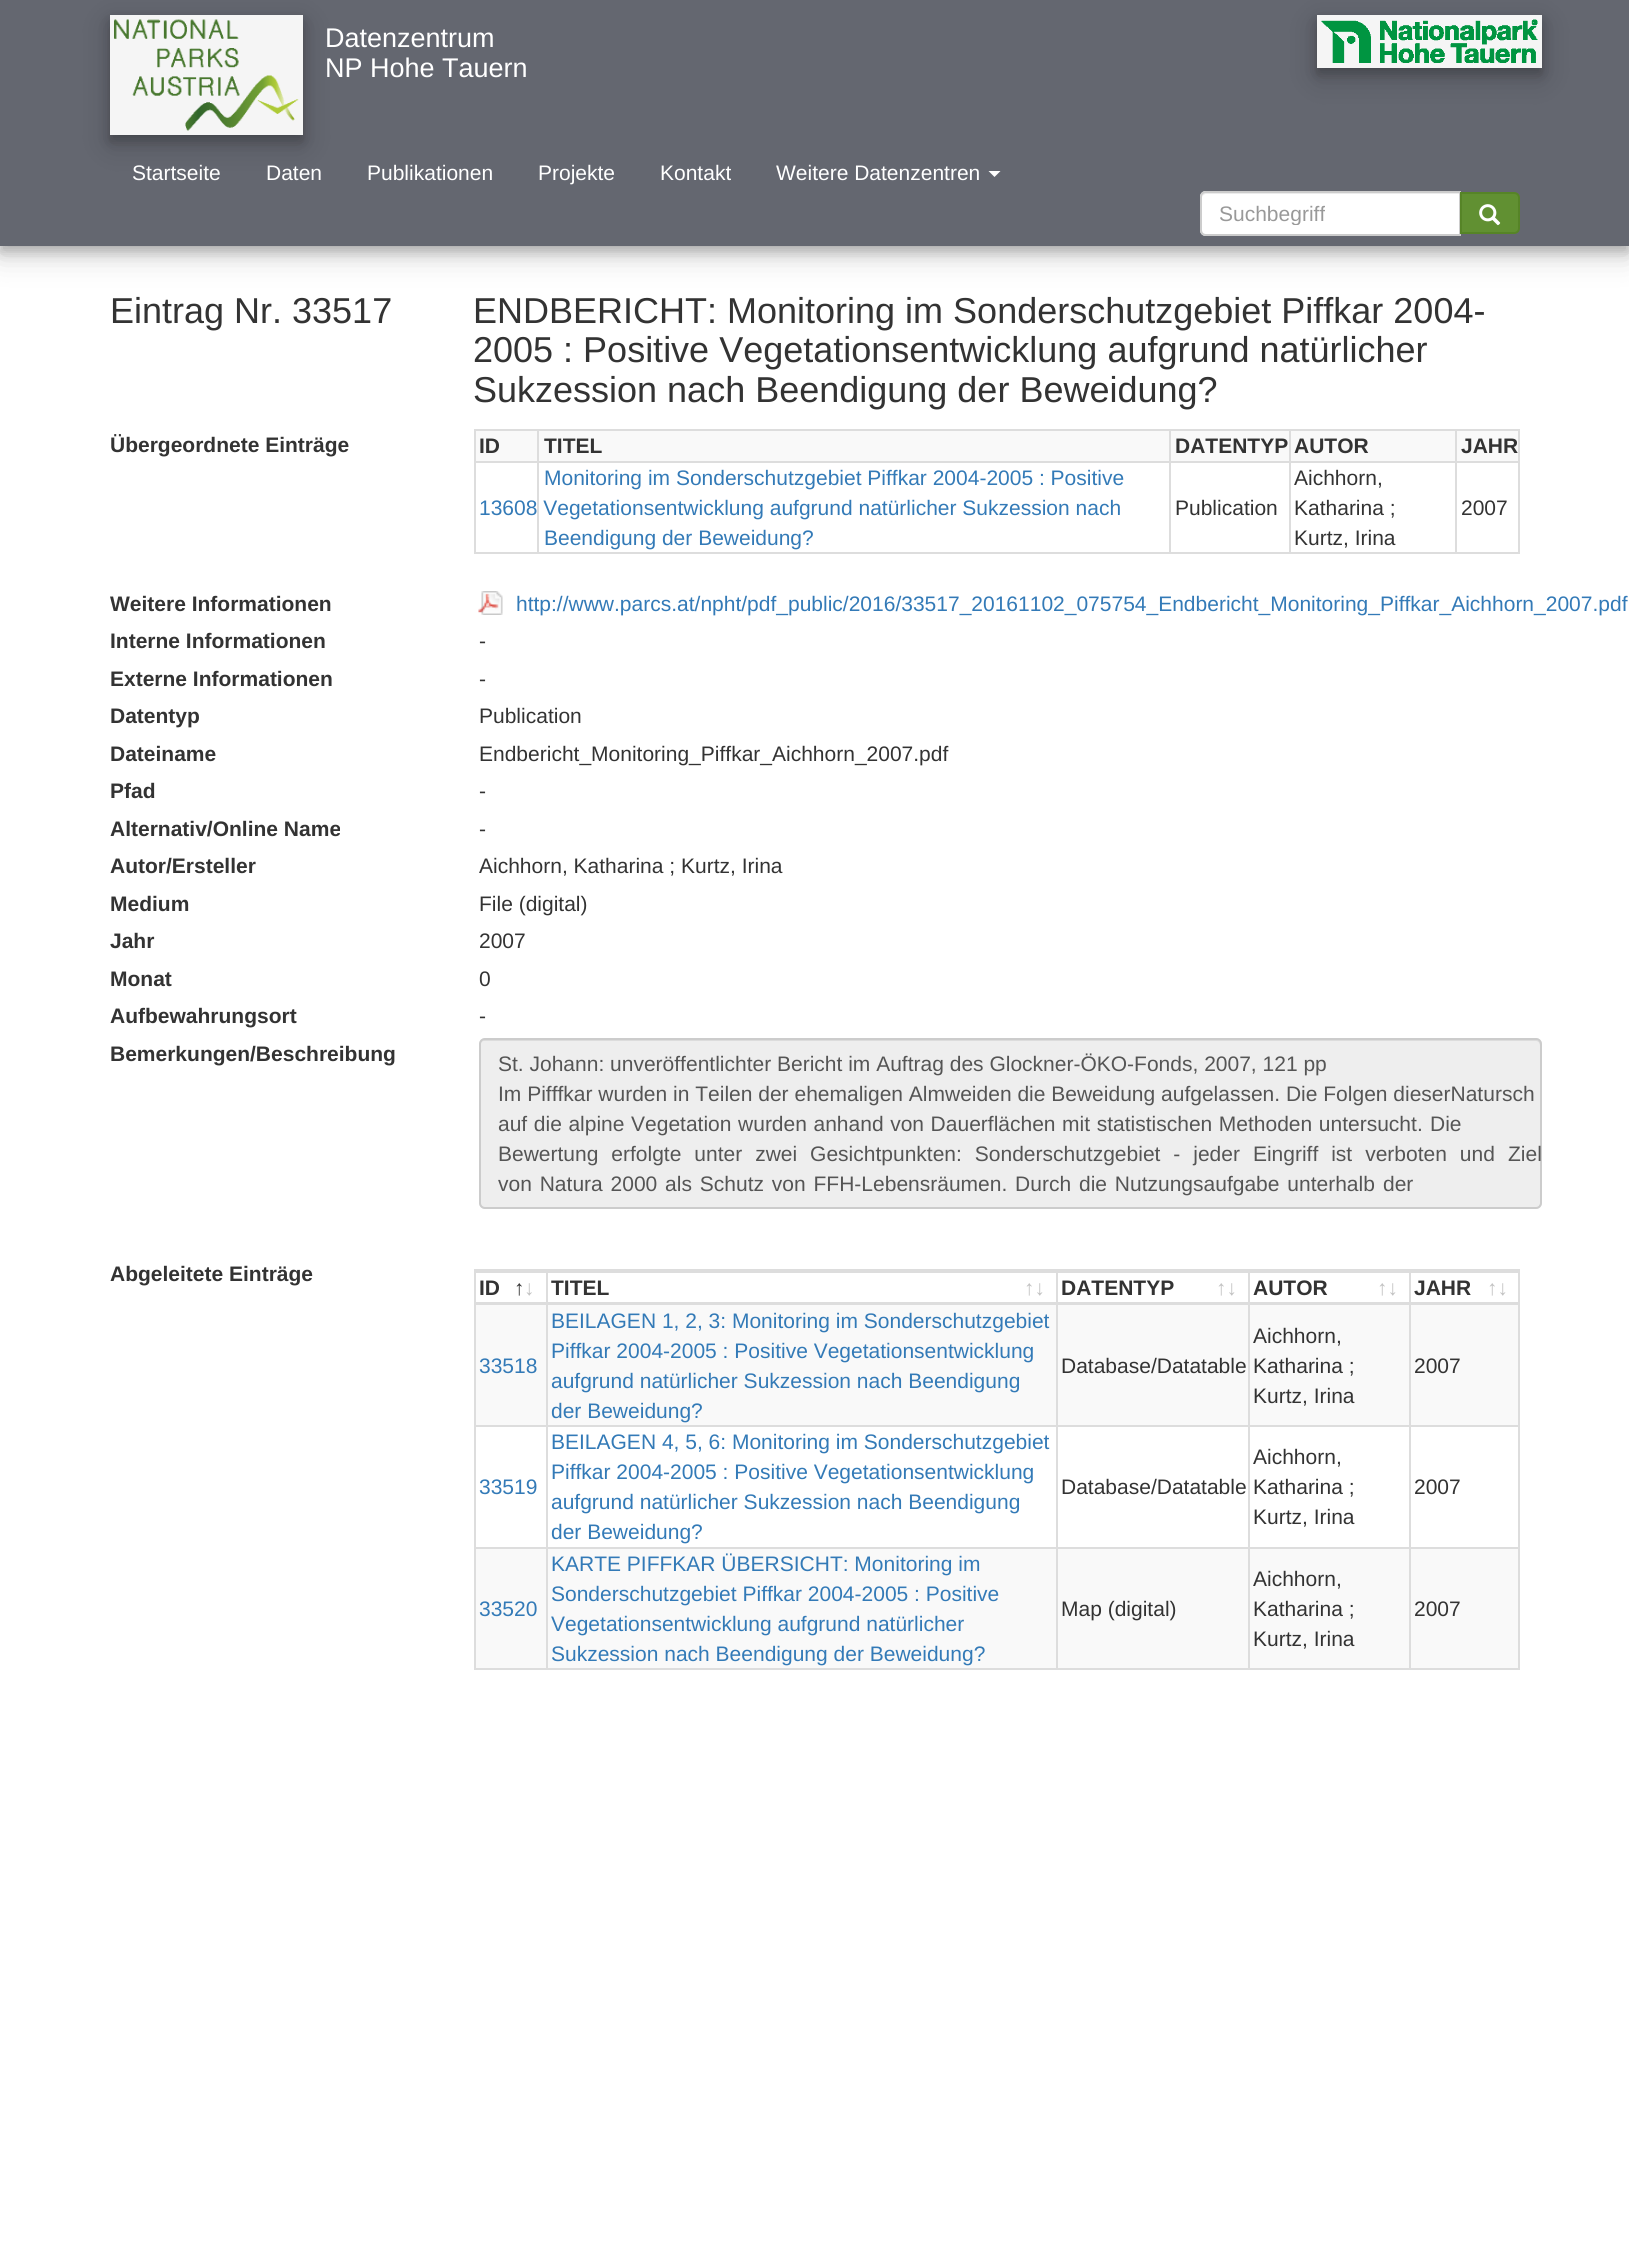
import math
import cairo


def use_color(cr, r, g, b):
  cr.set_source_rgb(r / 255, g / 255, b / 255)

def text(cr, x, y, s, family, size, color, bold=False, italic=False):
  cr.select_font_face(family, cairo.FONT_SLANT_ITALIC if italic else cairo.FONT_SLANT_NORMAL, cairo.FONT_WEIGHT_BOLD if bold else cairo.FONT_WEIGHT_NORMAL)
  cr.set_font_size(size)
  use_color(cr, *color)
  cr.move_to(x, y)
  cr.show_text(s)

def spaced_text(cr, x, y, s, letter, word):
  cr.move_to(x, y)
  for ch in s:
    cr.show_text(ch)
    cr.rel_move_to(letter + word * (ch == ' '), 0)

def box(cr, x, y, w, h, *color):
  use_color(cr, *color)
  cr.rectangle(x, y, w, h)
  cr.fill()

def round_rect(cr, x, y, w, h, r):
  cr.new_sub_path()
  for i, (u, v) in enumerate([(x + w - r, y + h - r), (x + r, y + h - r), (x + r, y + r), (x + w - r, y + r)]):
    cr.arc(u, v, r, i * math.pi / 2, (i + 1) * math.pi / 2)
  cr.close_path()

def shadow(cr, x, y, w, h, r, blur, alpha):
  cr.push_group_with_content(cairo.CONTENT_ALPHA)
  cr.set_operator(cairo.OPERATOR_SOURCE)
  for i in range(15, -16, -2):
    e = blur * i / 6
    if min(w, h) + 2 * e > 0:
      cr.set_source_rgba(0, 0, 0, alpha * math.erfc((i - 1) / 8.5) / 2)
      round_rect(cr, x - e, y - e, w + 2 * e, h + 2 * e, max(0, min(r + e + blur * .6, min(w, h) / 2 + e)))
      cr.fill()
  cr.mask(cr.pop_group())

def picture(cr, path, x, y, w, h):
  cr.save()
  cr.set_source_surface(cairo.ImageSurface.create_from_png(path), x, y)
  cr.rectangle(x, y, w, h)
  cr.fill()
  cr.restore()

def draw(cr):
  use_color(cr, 255, 255, 255)
  cr.paint()
  use_color(cr, 0, 0, 0)
  shadow(cr, 0, 9, 1629, 246, 0, 15, 0.19)
  shadow(cr, 0, 6, 1629, 246, 0, 6, 0.2)
  box(cr, 0, 0, 1629, 246, 100, 103, 112)
  use_color(cr, 0, 0, 0)
  shadow(cr, 110, 24, 193, 120, 0, 15, 0.19)
  shadow(cr, 110, 21, 193, 120, 0, 6, 0.2)
  box(cr, 110, 15, 193, 120, 245, 245, 245)
  picture(cr, "img_01.png", 114, 19, 185, 112)
  use_color(cr, 0, 0, 0)
  shadow(cr, 1317, 24, 225, 53, 0, 15, 0.19)
  shadow(cr, 1317, 21, 225, 53, 0, 6, 0.2)
  box(cr, 1317, 15, 225, 53, 245, 245, 245)
  picture(cr, "img_02.png", 1321, 19, 217, 44)
  use_color(cr, 255, 255, 255)
  cr.new_path()
  cr.move_to(988.5, 171)
  cr.line_to(1000.5, 171)
  cr.line_to(994.5, 177)
  cr.close_path()
  cr.fill()
  cr.new_path()
  cr.move_to(1206, 191)
  cr.line_to(1461, 191)
  cr.line_to(1461, 236)
  cr.line_to(1206, 236)
  cr.curve_to(1202.5, 236, 1200, 233.5, 1200, 230)
  cr.line_to(1200, 197)
  cr.curve_to(1200, 193.5, 1202.5, 191, 1206, 191)
  cr.close_path()
  cr.fill()
  use_color(cr, 236, 236, 236)
  cr.new_path()
  cr.move_to(1206, 194)
  cr.line_to(1460, 194)
  cr.line_to(1460, 192)
  cr.line_to(1207, 192)
  cr.curve_to(1204, 192, 1202, 195, 1202, 198)
  cr.curve_to(1202, 196, 1204, 194, 1206, 194)
  cr.close_path()
  cr.fill()
  cr.new_path()
  cr.move_to(1206, 192)
  cr.line_to(1460, 192)
  cr.line_to(1460, 235)
  cr.line_to(1206, 235)
  cr.curve_to(1203, 235, 1201, 233, 1201, 230)
  cr.line_to(1201, 197)
  cr.curve_to(1201, 194, 1203, 192, 1206, 192)
  cr.close_path()
  use_color(cr, 204, 204, 204)
  cr.stroke()
  use_color(cr, 97, 144, 50)
  cr.new_path()
  cr.move_to(1461, 193)
  cr.line_to(1514, 193)
  cr.curve_to(1517, 193, 1519, 195, 1519, 198)
  cr.line_to(1519, 228)
  cr.curve_to(1519, 231, 1517, 233, 1514, 233)
  cr.line_to(1461, 233)
  cr.close_path()
  cr.fill_preserve()
  use_color(cr, 86, 132, 39)
  cr.stroke()
  picture(cr, "img_03.png", 1479, 204, 22, 22)
  box(cr, 474, 429, 1046, 2, 221, 221, 221)
  box(cr, 1518, 429, 2, 125, 221, 221, 221)
  box(cr, 474, 552, 1046, 2, 221, 221, 221)
  box(cr, 474, 429, 2, 125, 221, 221, 221)
  box(cr, 476, 431, 1042, 30, 249, 249, 249)
  box(cr, 1455, 461, 65, 2, 221, 221, 221)
  box(cr, 1455, 461, 2, 93, 221, 221, 221)
  box(cr, 1289, 461, 168, 2, 221, 221, 221)
  box(cr, 1289, 461, 2, 93, 221, 221, 221)
  box(cr, 1169, 461, 121, 2, 221, 221, 221)
  box(cr, 1169, 461, 2, 93, 221, 221, 221)
  box(cr, 537, 461, 633, 2, 221, 221, 221)
  box(cr, 537, 461, 2, 93, 221, 221, 221)
  box(cr, 474, 461, 65, 2, 221, 221, 221)
  box(cr, 537, 429, 2, 33, 221, 221, 221)
  box(cr, 1289, 429, 2, 33, 221, 221, 221)
  box(cr, 1169, 429, 2, 33, 221, 221, 221)
  box(cr, 1455, 429, 2, 33, 221, 221, 221)
  picture(cr, "img_04.png", 478, 591, 25, 24)
  use_color(cr, 238, 238, 238)
  round_rect(cr, 479, 1038, 1063, 171, 6)
  cr.fill()
  use_color(cr, 220, 220, 220)
  cr.new_path()
  cr.move_to(484, 1041)
  cr.line_to(1536, 1041)
  cr.curve_to(1538, 1041, 1540, 1043, 1540, 1046)
  cr.line_to(1540, 1204)
  cr.line_to(1539, 1207)
  cr.curve_to(1540, 1206, 1541, 1204, 1541, 1203)
  cr.line_to(1541, 1045)
  cr.curve_to(1541, 1042, 1539, 1040, 1536, 1040)
  cr.line_to(485, 1040)
  cr.curve_to(482, 1040, 480, 1042, 480, 1045)
  cr.line_to(480, 1046)
  cr.curve_to(480, 1043, 482, 1041, 484, 1041)
  cr.close_path()
  cr.fill()
  round_rect(cr, 480, 1039, 1061, 169, 5)
  use_color(cr, 204, 204, 204)
  cr.stroke()
  box(cr, 474, 1269, 1046, 2, 221, 221, 221)
  box(cr, 1518, 1269, 2, 401, 221, 221, 221)
  box(cr, 474, 1269, 2, 36, 221, 221, 221)
  box(cr, 476, 1271, 934, 2, 221, 221, 221)
  box(cr, 546, 1271, 2, 34, 221, 221, 221)
  box(cr, 476, 1302, 72, 3, 221, 221, 221)
  box(cr, 1056, 1271, 2, 34, 221, 221, 221)
  box(cr, 548, 1302, 510, 3, 221, 221, 221)
  box(cr, 1248, 1271, 2, 34, 221, 221, 221)
  box(cr, 1058, 1302, 192, 3, 221, 221, 221)
  box(cr, 1409, 1271, 2, 34, 221, 221, 221)
  box(cr, 1250, 1302, 268, 3, 221, 221, 221)
  box(cr, 1410, 1271, 108, 2, 221, 221, 221)
  box(cr, 474, 1668, 1046, 2, 221, 221, 221)
  box(cr, 474, 1305, 2, 365, 221, 221, 221)
  box(cr, 476, 1305, 1042, 120, 249, 249, 249)
  box(cr, 546, 1305, 2, 120, 221, 221, 221)
  box(cr, 1056, 1305, 2, 120, 221, 221, 221)
  box(cr, 1248, 1305, 2, 120, 221, 221, 221)
  box(cr, 1409, 1305, 2, 120, 221, 221, 221)
  box(cr, 476, 1425, 934, 2, 221, 221, 221)
  box(cr, 546, 1425, 2, 122, 221, 221, 221)
  box(cr, 1056, 1425, 2, 122, 221, 221, 221)
  box(cr, 1248, 1425, 2, 122, 221, 221, 221)
  box(cr, 1409, 1425, 2, 122, 221, 221, 221)
  box(cr, 1410, 1425, 108, 2, 221, 221, 221)
  box(cr, 476, 1549, 1042, 119, 249, 249, 249)
  box(cr, 476, 1547, 934, 2, 221, 221, 221)
  box(cr, 546, 1547, 2, 121, 221, 221, 221)
  box(cr, 1056, 1547, 2, 121, 221, 221, 221)
  box(cr, 1248, 1547, 2, 121, 221, 221, 221)
  box(cr, 1409, 1547, 2, 121, 221, 221, 221)
  box(cr, 1410, 1547, 108, 2, 221, 221, 221)
  text(cr, 325, 47, "Datenzentrum", "Liberation Sans", 27, (255, 255, 255))
  text(cr, 325, 77, "NP Hohe Tauern", "Liberation Sans", 27, (255, 255, 255))
  text(cr, 132, 180, "Startseite", "Liberation Sans", 21, (255, 255, 255))
  text(cr, 266, 180, "Daten", "Liberation Sans", 21, (255, 255, 255))
  text(cr, 367, 180, "Publikationen", "Liberation Sans", 21, (255, 255, 255))
  text(cr, 538, 180, "Projekte", "Liberation Sans", 21, (255, 255, 255))
  text(cr, 660, 180, "Kontakt", "Liberation Sans", 21, (255, 255, 255))
  text(cr, 776, 180, "Weitere Datenzentren", "Liberation Sans", 21, (255, 255, 255))
  cr.save()
  cr.rectangle(1220, 201, 222, 24)
  cr.clip()
  text(cr, 1219, 221, "Suchbegriff", "Liberation Sans", 21, (153, 153, 153))
  cr.restore()
  text(cr, 110, 323, "Eintrag Nr. 33517", "Liberation Sans", 36, (51, 51, 51))
  text(cr, 473, 323, "ENDBERICHT: Monitoring im Sonderschutzgebiet Piffkar 2004-", "Liberation Sans", 36, (51, 51, 51))
  text(cr, 473, 362, "2005 : Positive Vegetationsentwicklung aufgrund natürlicher", "Liberation Sans", 36, (51, 51, 51))
  text(cr, 473, 402, "Sukzession nach Beendigung der Beweidung?", "Liberation Sans", 36, (51, 51, 51))
  text(cr, 110, 452, "Übergeordnete Einträge", "Liberation Sans", 21, (51, 51, 51), bold=True)
  text(cr, 479, 453, "ID", "Liberation Sans", 21, (51, 51, 51), bold=True)
  text(cr, 544, 453, "TITEL", "Liberation Sans", 21, (51, 51, 51), bold=True)
  text(cr, 1175, 453, "DATENTYP AUTOR", "Liberation Sans", 21, (51, 51, 51), bold=True)
  text(cr, 1461, 453, "JAHR", "Liberation Sans", 21, (51, 51, 51), bold=True)
  text(cr, 544, 485, "Monitoring im Sonderschutzgebiet Piffkar 2004-2005 : Positive", "Liberation Sans", 21, (51, 122, 183))
  text(cr, 544, 545, "Beendigung der Beweidung?", "Liberation Sans", 21, (51, 122, 183))
  text(cr, 1294, 485, "Aichhorn,", "Liberation Sans", 21, (51, 51, 51))
  text(cr, 1294, 515, "Katharina ;", "Liberation Sans", 21, (51, 51, 51))
  text(cr, 1294, 545, "Kurtz, Irina", "Liberation Sans", 21, (51, 51, 51))
  text(cr, 479, 515, "13608 Vegetationsentwicklung aufgrund natürlicher Sukzession nach", "Liberation Sans", 21, (51, 122, 183))
  text(cr, 1175, 515, "Publication", "Liberation Sans", 21, (51, 51, 51))
  text(cr, 1461, 515, "2007", "Liberation Sans", 21, (51, 51, 51))
  text(cr, 110, 611, "Weitere Informationen", "Liberation Sans", 21, (51, 51, 51), bold=True)
  text(cr, 516, 611, "http://www.parcs.at/npht/pdf_public/2016/33517_20161102_075754_Endbericht_Monitoring_Piffkar_Aichhorn_2007.pdf", "Liberation Sans", 21, (51, 122, 183))
  text(cr, 110, 648, "Interne Informationen", "Liberation Sans", 21, (51, 51, 51), bold=True)
  text(cr, 479, 648, "-", "Liberation Sans", 21, (51, 51, 51))
  text(cr, 110, 686, "Externe Informationen", "Liberation Sans", 21, (51, 51, 51), bold=True)
  text(cr, 479, 686, "-", "Liberation Sans", 21, (51, 51, 51))
  text(cr, 110, 723, "Datentyp", "Liberation Sans", 21, (51, 51, 51), bold=True)
  text(cr, 479, 723, "Publication", "Liberation Sans", 21, (51, 51, 51))
  text(cr, 110, 761, "Dateiname", "Liberation Sans", 21, (51, 51, 51), bold=True)
  text(cr, 479, 761, "Endbericht_Monitoring_Piffkar_Aichhorn_2007.pdf", "Liberation Sans", 21, (51, 51, 51))
  text(cr, 110, 798, "Pfad", "Liberation Sans", 21, (51, 51, 51), bold=True)
  text(cr, 479, 798, "-", "Liberation Sans", 21, (51, 51, 51))
  text(cr, 110, 836, "Alternativ/Online Name", "Liberation Sans", 21, (51, 51, 51), bold=True)
  text(cr, 479, 836, "-", "Liberation Sans", 21, (51, 51, 51))
  text(cr, 110, 873, "Autor/Ersteller", "Liberation Sans", 21, (51, 51, 51), bold=True)
  text(cr, 479, 873, "Aichhorn, Katharina ; Kurtz, Irina", "Liberation Sans", 21, (51, 51, 51))
  text(cr, 110, 911, "Medium", "Liberation Sans", 21, (51, 51, 51), bold=True)
  text(cr, 479, 911, "File (digital)", "Liberation Sans", 21, (51, 51, 51))
  text(cr, 110, 948, "Jahr", "Liberation Sans", 21, (51, 51, 51), bold=True)
  text(cr, 479, 948, "2007", "Liberation Sans", 21, (51, 51, 51))
  text(cr, 110, 986, "Monat", "Liberation Sans", 21, (51, 51, 51), bold=True)
  text(cr, 479, 986, "0", "Liberation Sans", 21, (51, 51, 51))
  text(cr, 110, 1023, "Aufbewahrungsort", "Liberation Sans", 21, (51, 51, 51), bold=True)
  text(cr, 479, 1023, "-", "Liberation Sans", 21, (51, 51, 51))
  text(cr, 110, 1061, "Bemerkungen/Beschreibung", "Liberation Sans", 21, (51, 51, 51), bold=True)
  text(cr, 498, 1071, "St. Johann: unveröffentlichter Bericht im Auftrag des Glockner-ÖKO-Fonds, 2007, 121 pp", "Liberation Sans", 21, (85, 85, 85))
  text(cr, 498, 1101, "Im Pifffkar wurden in Teilen der ehemaligen Almweiden die Beweidung aufgelassen. Die Folgen dieserNatursch", "Liberation Sans", 21, (85, 85, 85))
  spaced_text(cr, 498, 1131, "auf die alpine Vegetation wurden anhand von Dauerflächen mit statistischen Methoden untersucht.", 0, 0.75)
  text(cr, 1430, 1131, "Die", "Liberation Sans", 21, (85, 85, 85))
  spaced_text(cr, 498, 1161, "Bewertung erfolgte unter zwei Gesichtpunkten: Sonderschutzgebiet - jeder Eingriff ist verboten und", 0, 7.1)
  text(cr, 1508, 1161, "Ziel", "Liberation Sans", 21, (85, 85, 85))
  spaced_text(cr, 498, 1191, "von Natura 2000 als Schutz von FFH-Lebensräumen. Durch die Nutzungsaufgabe unterhalb", 0, 2)
  text(cr, 1383, 1191, "der", "Liberation Sans", 21, (85, 85, 85))
  text(cr, 110, 1281, "Abgeleitete Einträge", "Liberation Sans", 21, (51, 51, 51), bold=True)
  text(cr, 479, 1295, "ID", "Liberation Sans", 21, (51, 51, 51), bold=True)
  text(cr, 514, 1295, "↑", "Liberation Sans", 21, (51, 51, 51), bold=True)
  text(cr, 524, 1295, "↓", "Liberation Sans", 21, (194, 194, 194), bold=True)
  text(cr, 551, 1295, "TITEL", "Liberation Sans", 21, (51, 51, 51), bold=True)
  text(cr, 1024, 1295, "↑↓", "Liberation Sans", 21, (194, 194, 194), bold=True)
  text(cr, 1061, 1295, "DATENTYP", "Liberation Sans", 21, (51, 51, 51), bold=True)
  text(cr, 1216, 1295, "↑↓", "Liberation Sans", 21, (194, 194, 194), bold=True)
  text(cr, 1253, 1295, "AUTOR", "Liberation Sans", 21, (51, 51, 51), bold=True)
  text(cr, 1377, 1295, "↑↓", "Liberation Sans", 21, (194, 194, 194), bold=True)
  text(cr, 1414, 1295, "JAHR", "Liberation Sans", 21, (51, 51, 51), bold=True)
  text(cr, 1487, 1295, "↑↓", "Liberation Sans", 21, (194, 194, 194), bold=True)
  text(cr, 479, 1373, "33518", "Liberation Sans", 21, (51, 122, 183))
  text(cr, 551, 1328, "BEILAGEN 1, 2, 3: Monitoring im Sonderschutzgebiet", "Liberation Sans", 21, (51, 122, 183))
  text(cr, 551, 1358, "Piffkar 2004-2005 : Positive Vegetationsentwicklung", "Liberation Sans", 21, (51, 122, 183))
  text(cr, 551, 1388, "aufgrund natürlicher Sukzession nach Beendigung", "Liberation Sans", 21, (51, 122, 183))
  text(cr, 551, 1418, "der Beweidung?", "Liberation Sans", 21, (51, 122, 183))
  text(cr, 1061, 1373, "Database/Datatable", "Liberation Sans", 21, (51, 51, 51))
  text(cr, 1253, 1343, "Aichhorn,", "Liberation Sans", 21, (51, 51, 51))
  text(cr, 1253, 1373, "Katharina ;", "Liberation Sans", 21, (51, 51, 51))
  text(cr, 1253, 1403, "Kurtz, Irina", "Liberation Sans", 21, (51, 51, 51))
  text(cr, 1414, 1373, "2007", "Liberation Sans", 21, (51, 51, 51))
  text(cr, 479, 1494, "33519", "Liberation Sans", 21, (51, 122, 183))
  text(cr, 551, 1449, "BEILAGEN 4, 5, 6: Monitoring im Sonderschutzgebiet", "Liberation Sans", 21, (51, 122, 183))
  text(cr, 551, 1479, "Piffkar 2004-2005 : Positive Vegetationsentwicklung", "Liberation Sans", 21, (51, 122, 183))
  text(cr, 551, 1509, "aufgrund natürlicher Sukzession nach Beendigung", "Liberation Sans", 21, (51, 122, 183))
  text(cr, 551, 1539, "der Beweidung?", "Liberation Sans", 21, (51, 122, 183))
  text(cr, 1061, 1494, "Database/Datatable", "Liberation Sans", 21, (51, 51, 51))
  text(cr, 1253, 1464, "Aichhorn,", "Liberation Sans", 21, (51, 51, 51))
  text(cr, 1253, 1494, "Katharina ;", "Liberation Sans", 21, (51, 51, 51))
  text(cr, 1253, 1524, "Kurtz, Irina", "Liberation Sans", 21, (51, 51, 51))
  text(cr, 1414, 1494, "2007", "Liberation Sans", 21, (51, 51, 51))
  text(cr, 479, 1616, "33520", "Liberation Sans", 21, (51, 122, 183))
  text(cr, 551, 1571, "KARTE PIFFKAR ÜBERSICHT: Monitoring im", "Liberation Sans", 21, (51, 122, 183))
  text(cr, 551, 1601, "Sonderschutzgebiet Piffkar 2004-2005 : Positive", "Liberation Sans", 21, (51, 122, 183))
  text(cr, 551, 1631, "Vegetationsentwicklung aufgrund natürlicher", "Liberation Sans", 21, (51, 122, 183))
  text(cr, 551, 1661, "Sukzession nach Beendigung der Beweidung?", "Liberation Sans", 21, (51, 122, 183))
  text(cr, 1061, 1616, "Map (digital)", "Liberation Sans", 21, (51, 51, 51))
  text(cr, 1253, 1586, "Aichhorn,", "Liberation Sans", 21, (51, 51, 51))
  text(cr, 1253, 1616, "Katharina ;", "Liberation Sans", 21, (51, 51, 51))
  text(cr, 1253, 1646, "Kurtz, Irina", "Liberation Sans", 21, (51, 51, 51))
  text(cr, 1414, 1616, "2007", "Liberation Sans", 21, (51, 51, 51))


surface = cairo.ImageSurface(cairo.FORMAT_RGB24, 1629, 2241)
cr = cairo.Context(surface)
options = cairo.FontOptions()
options.set_hint_metrics(cairo.HINT_METRICS_OFF)
options.set_hint_style(cairo.HINT_STYLE_NONE)
cr.set_font_options(options)
cr.set_miter_limit(4)
draw(cr)
surface.write_to_png("out.png")
